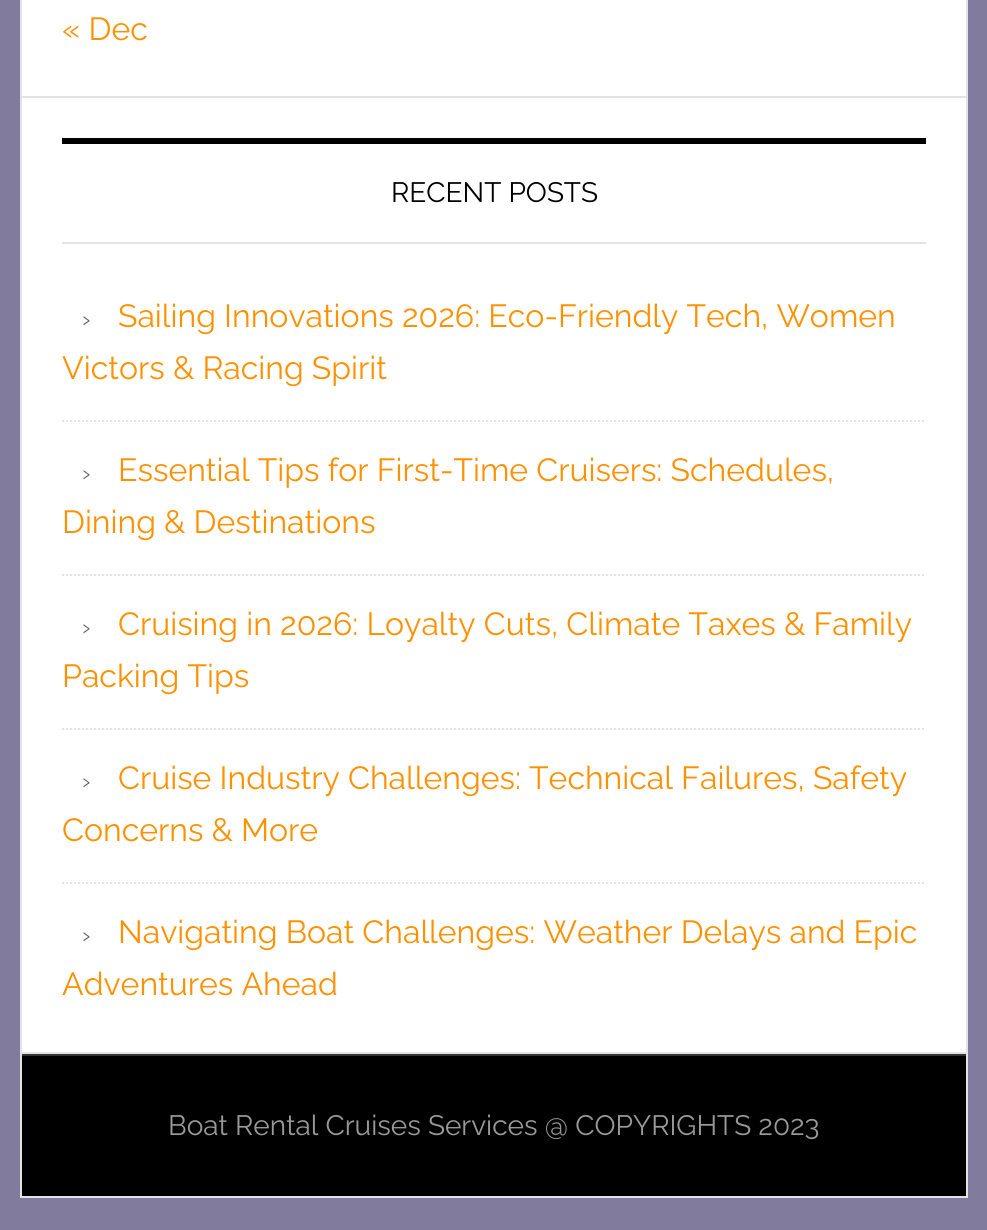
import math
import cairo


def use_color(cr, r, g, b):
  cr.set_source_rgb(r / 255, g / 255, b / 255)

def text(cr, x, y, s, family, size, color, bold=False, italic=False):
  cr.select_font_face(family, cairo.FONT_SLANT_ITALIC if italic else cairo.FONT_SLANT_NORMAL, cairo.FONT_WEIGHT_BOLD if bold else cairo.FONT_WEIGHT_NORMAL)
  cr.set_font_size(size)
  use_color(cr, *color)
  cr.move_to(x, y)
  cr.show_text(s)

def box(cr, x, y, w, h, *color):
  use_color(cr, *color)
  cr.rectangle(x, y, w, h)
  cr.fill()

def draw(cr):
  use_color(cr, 129, 123, 158)
  cr.paint()
  box(cr, 22, 0, 944, 1052, 255, 255, 255)
  cr.rectangle(21, -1, 946, 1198)
  use_color(cr, 227, 227, 227)
  cr.stroke()
  box(cr, 22, 96, 944, 2, 227, 227, 227)
  box(cr, 22, 1052, 944, 2, 227, 227, 227)
  box(cr, 62, 138, 864, 6, 0, 0, 0)
  box(cr, 62, 242, 864, 2, 227, 227, 227)
  cr.new_path()
  cr.move_to(62, 421)
  cr.line_to(926, 421)
  cr.set_dash([2, 2])
  cr.stroke()
  cr.new_path()
  cr.move_to(62, 575)
  cr.line_to(926, 575)
  cr.stroke()
  cr.new_path()
  cr.move_to(62, 729)
  cr.line_to(926, 729)
  cr.stroke()
  cr.new_path()
  cr.move_to(62, 883)
  cr.line_to(926, 883)
  cr.stroke()
  box(cr, 22, 1056, 944, 140, 0, 0, 0)
  box(cr, 22, 1054, 944, 2, 51, 51, 51)
  text(cr, 62, 40, "« Dec", "Raleway", 32, (255, 144, 0))
  text(cr, 391, 202, "RECENT POSTS", "Raleway", 28, (0, 0, 0))
  text(cr, 82, 327, "›", "Raleway", 24, (102, 102, 102))
  text(cr, 118, 327, "Sailing Innovations 2026: Eco-Friendly Tech, Women", "Raleway", 32, (255, 144, 0))
  text(cr, 62, 379, "Victors & Racing Spirit", "Raleway", 32, (255, 144, 0))
  text(cr, 82, 481, "›", "Raleway", 24, (102, 102, 102))
  text(cr, 118, 481, "Essential Tips for First-Time Cruisers: Schedules,", "Raleway", 32, (255, 144, 0))
  text(cr, 62, 533, "Dining & Destinations", "Raleway", 32, (255, 144, 0))
  text(cr, 82, 635, "›", "Raleway", 24, (102, 102, 102))
  text(cr, 118, 635, "Cruising in 2026: Loyalty Cuts, Climate Taxes & Family", "Raleway", 32, (255, 144, 0))
  text(cr, 62, 687, "Packing Tips", "Raleway", 32, (255, 144, 0))
  text(cr, 82, 789, "›", "Raleway", 24, (102, 102, 102))
  text(cr, 118, 789, "Cruise Industry Challenges: Technical Failures, Safety", "Raleway", 32, (255, 144, 0))
  text(cr, 62, 841, "Concerns & More", "Raleway", 32, (255, 144, 0))
  text(cr, 82, 943, "›", "Raleway", 24, (102, 102, 102))
  text(cr, 118, 943, "Navigating Boat Challenges: Weather Delays and Epic", "Raleway", 32, (255, 144, 0))
  text(cr, 62, 995, "Adventures Ahead", "Raleway", 32, (255, 144, 0))
  text(cr, 168, 1135, "Boat Rental Cruises Services @ COPYRIGHTS 2023", "Raleway", 28, (153, 153, 153))


surface = cairo.ImageSurface(cairo.FORMAT_RGB24, 987, 1230)
cr = cairo.Context(surface)
options = cairo.FontOptions()
options.set_hint_metrics(cairo.HINT_METRICS_OFF)
options.set_hint_style(cairo.HINT_STYLE_NONE)
cr.set_font_options(options)
cr.set_miter_limit(4)
draw(cr)
surface.write_to_png("out.png")
